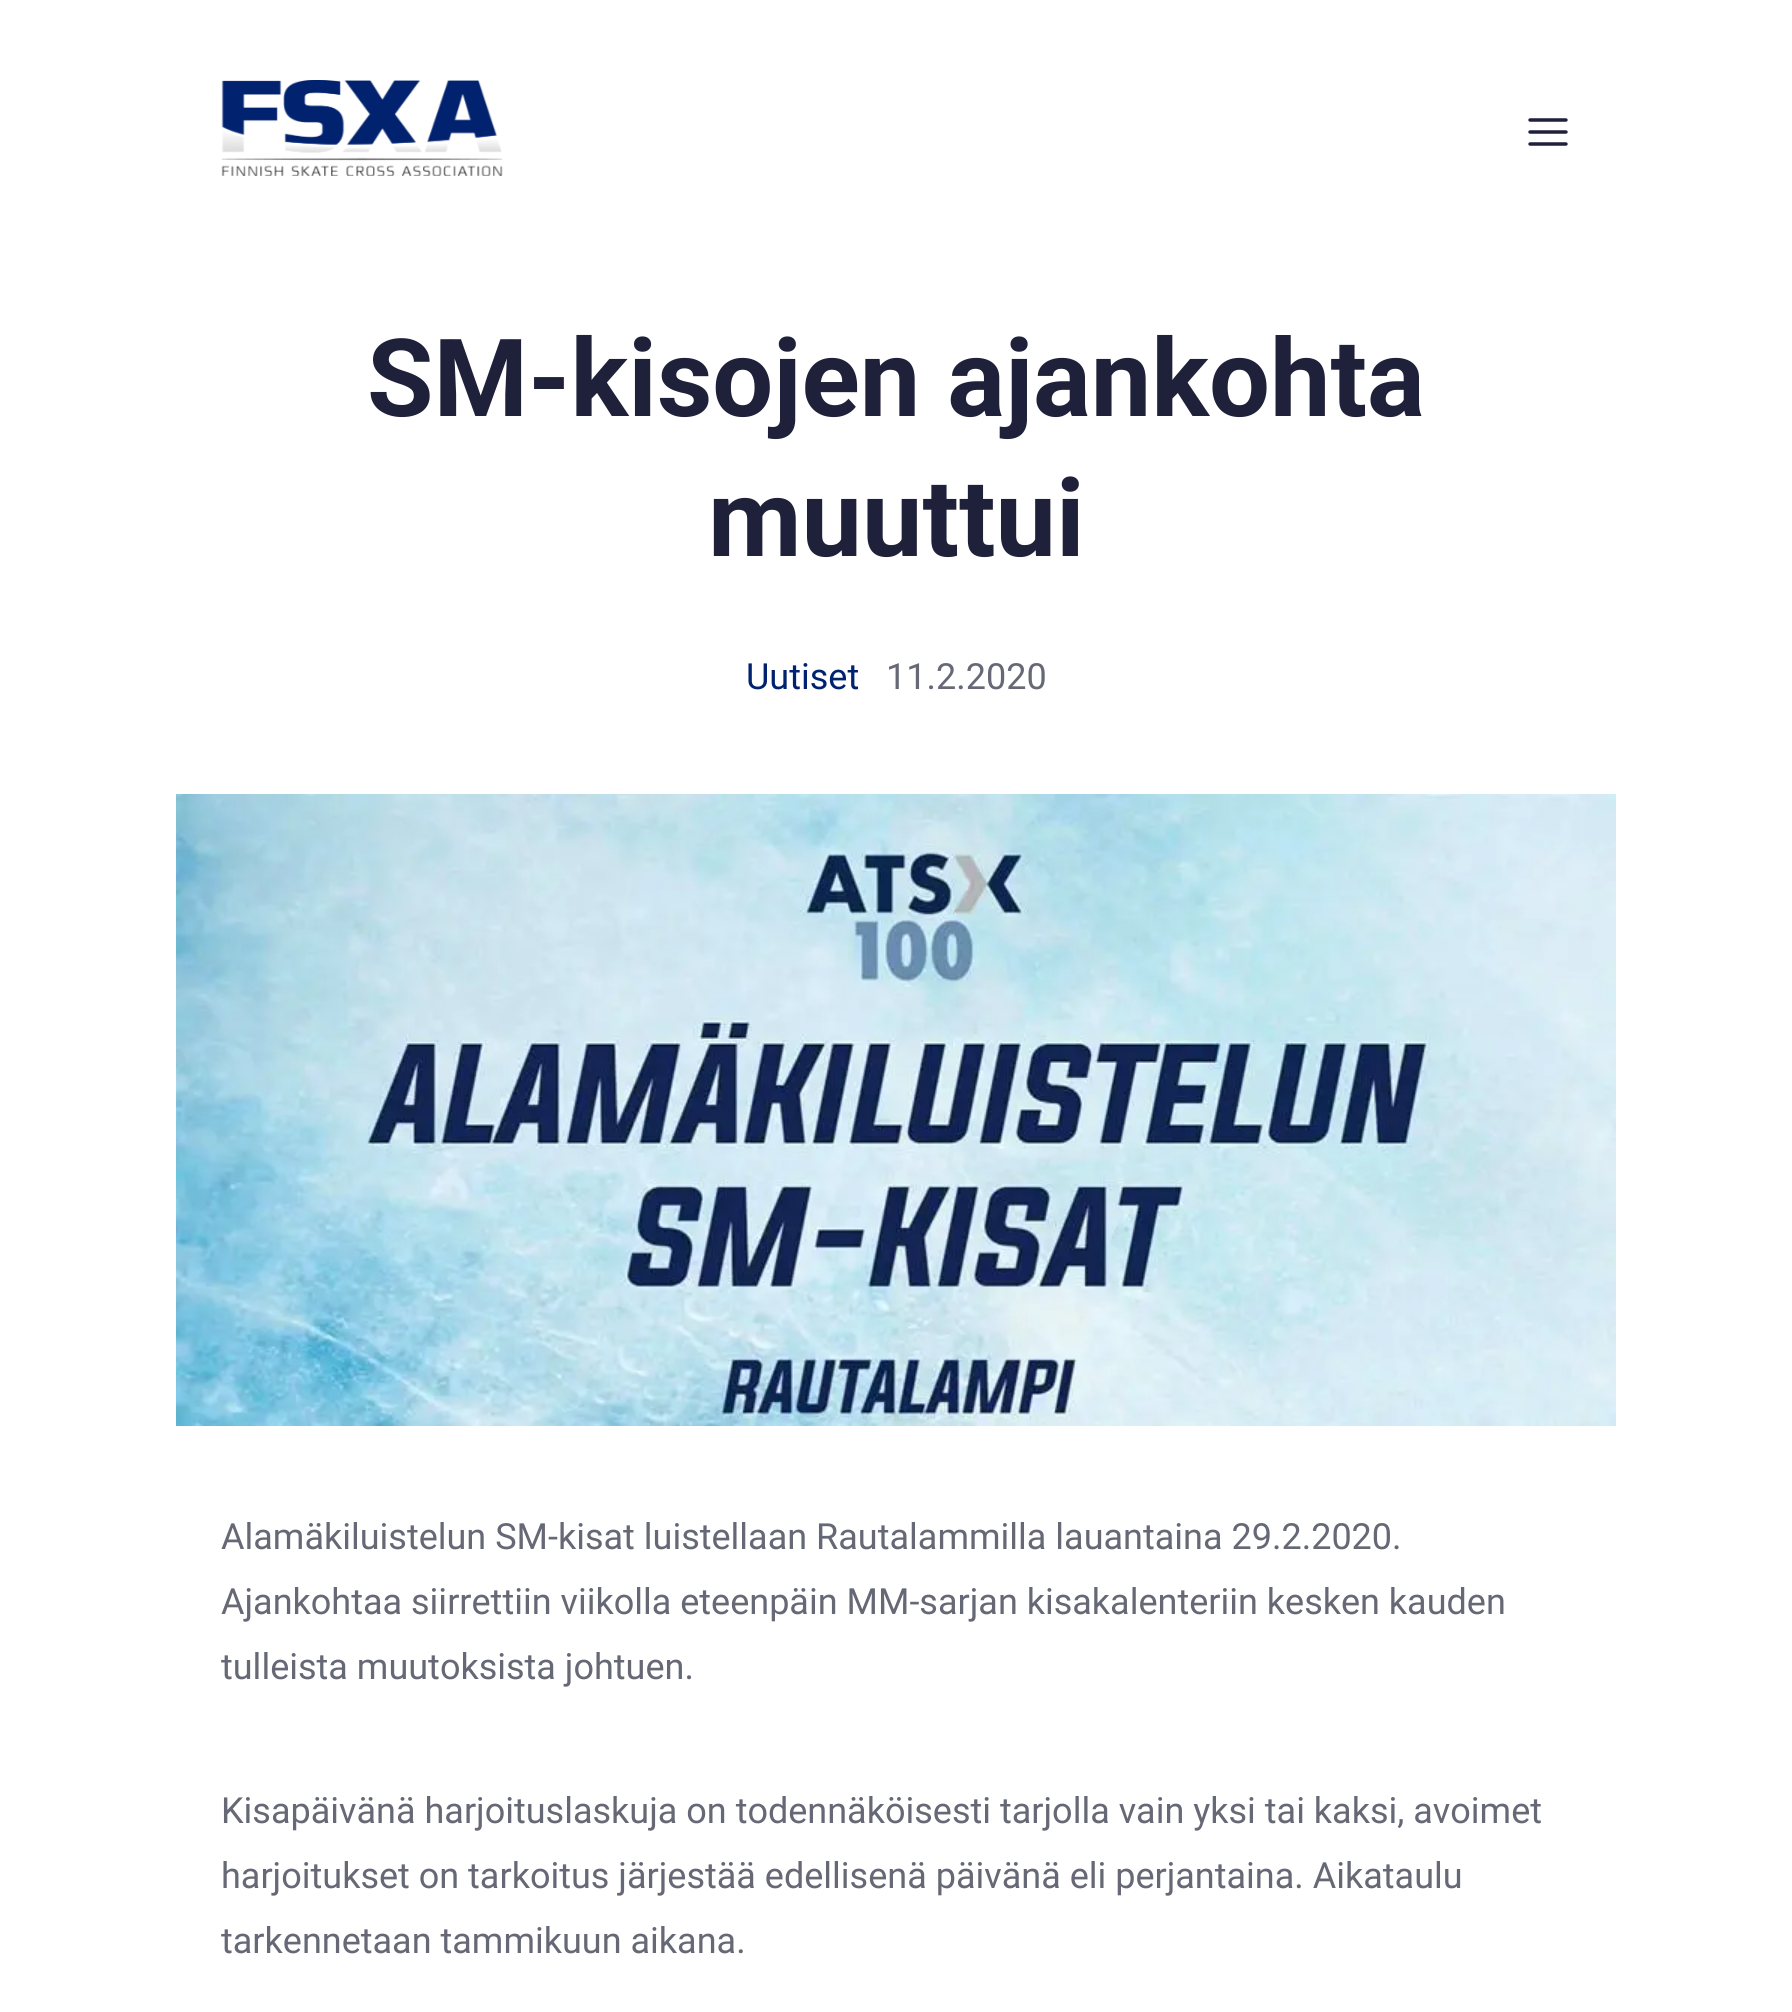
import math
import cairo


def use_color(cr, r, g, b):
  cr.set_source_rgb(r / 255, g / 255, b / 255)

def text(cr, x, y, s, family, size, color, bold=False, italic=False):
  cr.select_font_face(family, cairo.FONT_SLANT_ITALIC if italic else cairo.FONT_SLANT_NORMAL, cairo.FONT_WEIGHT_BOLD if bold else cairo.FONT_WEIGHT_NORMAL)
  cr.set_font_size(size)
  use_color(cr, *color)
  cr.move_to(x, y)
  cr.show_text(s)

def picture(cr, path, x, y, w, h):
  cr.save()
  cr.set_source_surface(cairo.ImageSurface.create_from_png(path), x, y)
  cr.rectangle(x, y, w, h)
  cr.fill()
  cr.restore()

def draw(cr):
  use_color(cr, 255, 255, 255)
  cr.paint()
  picture(cr, "img_01.png", 221, 80, 282, 96)
  picture(cr, "img_02.png", 1528, 118, 40, 28)
  picture(cr, "img_03.png", 176, 794, 1440, 632)
  text(cr, 367, 416, "SM-kisojen ajankohta", "Roboto", 108, (31, 33, 58), bold=True)
  text(cr, 708, 556, "muuttui", "Roboto", 108, (31, 33, 58), bold=True)
  text(cr, 746, 689, "Uutiset", "Roboto", 36, (0, 34, 111))
  text(cr, 886, 689, "11.2.2020", "Roboto", 36, (102, 105, 117))
  text(cr, 221, 1549, "Alamäkiluistelun SM-kisat luistellaan Rautalammilla lauantaina 29.2.2020.", "Roboto", 36, (102, 105, 117))
  text(cr, 221, 1614, "Ajankohtaa siirrettiin viikolla eteenpäin MM-sarjan kisakalenteriin kesken kauden", "Roboto", 36, (102, 105, 117))
  text(cr, 221, 1679, "tulleista muutoksista johtuen.", "Roboto", 36, (102, 105, 117))
  text(cr, 221, 1823, "Kisapäivänä harjoituslaskuja on todennäköisesti tarjolla vain yksi tai kaksi, avoimet", "Roboto", 36, (102, 105, 117))
  text(cr, 221, 1888, "harjoitukset on tarkoitus järjestää edellisenä päivänä eli perjantaina. Aikataulu", "Roboto", 36, (102, 105, 117))
  text(cr, 221, 1953, "tarkennetaan tammikuun aikana.", "Roboto", 36, (102, 105, 117))


surface = cairo.ImageSurface(cairo.FORMAT_RGB24, 1792, 2012)
cr = cairo.Context(surface)
options = cairo.FontOptions()
options.set_hint_metrics(cairo.HINT_METRICS_OFF)
options.set_hint_style(cairo.HINT_STYLE_NONE)
cr.set_font_options(options)
cr.set_miter_limit(4)
draw(cr)
surface.write_to_png("out.png")
